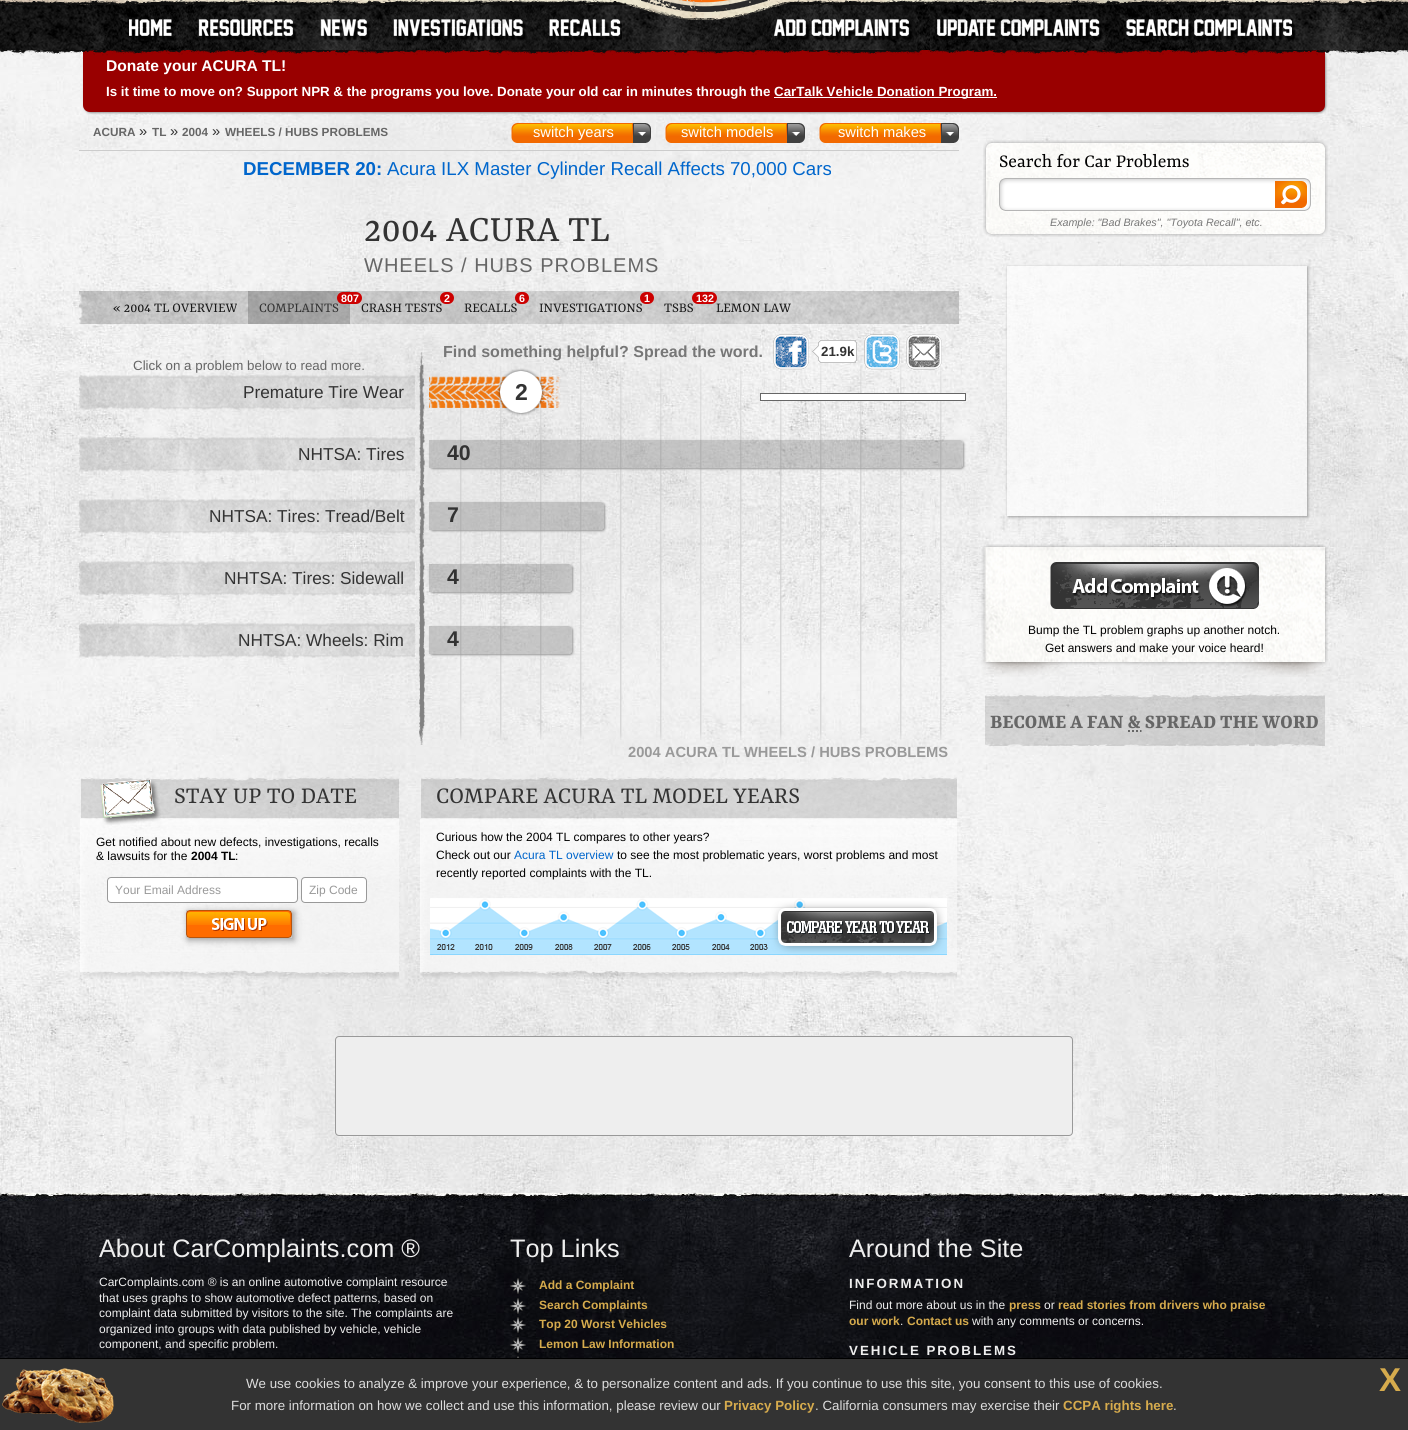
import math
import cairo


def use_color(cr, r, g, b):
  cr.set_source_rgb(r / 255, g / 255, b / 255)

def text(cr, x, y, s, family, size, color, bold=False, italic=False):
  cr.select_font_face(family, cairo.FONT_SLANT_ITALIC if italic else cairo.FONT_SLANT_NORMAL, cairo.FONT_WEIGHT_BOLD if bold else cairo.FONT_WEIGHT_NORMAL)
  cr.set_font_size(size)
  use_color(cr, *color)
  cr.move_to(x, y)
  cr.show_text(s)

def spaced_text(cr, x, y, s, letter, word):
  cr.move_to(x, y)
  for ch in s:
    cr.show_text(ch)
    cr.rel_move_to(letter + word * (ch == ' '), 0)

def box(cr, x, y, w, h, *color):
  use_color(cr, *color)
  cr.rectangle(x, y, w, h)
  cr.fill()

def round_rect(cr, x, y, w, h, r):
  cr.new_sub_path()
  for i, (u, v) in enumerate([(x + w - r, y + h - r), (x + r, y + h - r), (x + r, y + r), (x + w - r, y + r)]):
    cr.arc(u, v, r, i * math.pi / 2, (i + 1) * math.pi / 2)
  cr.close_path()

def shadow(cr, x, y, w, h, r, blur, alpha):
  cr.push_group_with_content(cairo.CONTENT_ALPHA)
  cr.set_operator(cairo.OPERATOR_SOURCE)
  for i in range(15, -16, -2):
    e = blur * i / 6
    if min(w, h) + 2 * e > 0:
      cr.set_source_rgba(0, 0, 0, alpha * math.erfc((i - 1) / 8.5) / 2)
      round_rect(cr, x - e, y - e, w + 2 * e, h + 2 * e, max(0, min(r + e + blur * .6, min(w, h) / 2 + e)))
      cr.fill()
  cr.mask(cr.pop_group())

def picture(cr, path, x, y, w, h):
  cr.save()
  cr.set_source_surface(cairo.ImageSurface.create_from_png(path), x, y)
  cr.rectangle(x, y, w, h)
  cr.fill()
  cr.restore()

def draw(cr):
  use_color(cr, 255, 255, 255)
  cr.paint()
  picture(cr, "img_01.png", 0, 35, 1408, 1158)
  picture(cr, "img_02.png", 0, 0, 1408, 34)
  use_color(cr, 153, 153, 153)
  shadow(cr, 84, 51, 1242, 62, 7, 1, 1)
  use_color(cr, 153, 0, 0)
  cr.new_path()
  cr.move_to(83, 50)
  cr.line_to(1325, 50)
  cr.line_to(1325, 105)
  cr.curve_to(1325, 109, 1322, 112, 1318, 112)
  cr.line_to(90, 112)
  cr.curve_to(86, 112, 83, 109, 83, 105)
  cr.close_path()
  cr.fill()
  picture(cr, "img_03.png", 0, 0, 1408, 56)
  picture(cr, "img_04.png", 638, 0, 132, 12)
  cr.set_source_rgba(0, 0, 0, 0.1)
  cr.rectangle(936, 0, 261, 4)
  cr.fill()
  picture(cr, "img_05.png", 129, 19, 46, 22)
  picture(cr, "img_06.png", 198, 19, 99, 22)
  picture(cr, "img_07.png", 320, 19, 51, 22)
  picture(cr, "img_08.png", 393, 19, 134, 22)
  picture(cr, "img_09.png", 549, 19, 73, 22)
  picture(cr, "img_10.png", 773, 19, 140, 22)
  picture(cr, "img_11.png", 936, 19, 167, 22)
  picture(cr, "img_12.png", 1126, 19, 170, 22)
  box(cr, 774, 97, 223, 1, 255, 255, 255)
  box(cr, 79, 150, 880, 1, 204, 204, 204)
  picture(cr, "img_13.png", 511, 123, 140, 20)
  picture(cr, "img_14.png", 665, 123, 140, 20)
  picture(cr, "img_15.png", 819, 123, 140, 20)
  picture(cr, "img_16.png", 79, 291, 880, 33)
  cr.set_source_rgba(0, 0, 0, 0.2)
  cr.rectangle(248, 291, 102, 33)
  cr.fill()
  picture(cr, "img_20.png", 419, 352, 523, 374)
  picture(cr, "img_17.png", 773, 334, 84, 36)
  picture(cr, "img_18.png", 864, 334, 36, 36)
  picture(cr, "img_19.png", 906, 334, 36, 36)
  picture(cr, "img_21.png", 79, 375, 336, 35)
  picture(cr, "img_22.png", 429, 376, 132, 32)
  picture(cr, "img_23.png", 497, 368, 48, 48)
  picture(cr, "img_24.png", 79, 437, 336, 35)
  cr.save()
  cr.set_fill_rule(cairo.FILL_RULE_EVEN_ODD)
  cr.new_path()
  cr.move_to(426, 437)
  cr.line_to(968, 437)
  cr.line_to(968, 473)
  cr.line_to(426, 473)
  cr.close_path()
  cr.move_to(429, 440)
  cr.line_to(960, 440)
  cr.curve_to(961.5, 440, 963, 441.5, 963, 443)
  cr.line_to(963, 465)
  cr.curve_to(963, 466.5, 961.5, 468, 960, 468)
  cr.line_to(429, 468)
  cr.close_path()
  cr.clip()
  use_color(cr, 153, 153, 153)
  shadow(cr, 430, 441, 534, 28, 3, 1, 1)
  cr.restore()
  cr.set_source_rgba(0.392, 0.392, 0.392, 0.3)
  cr.new_path()
  cr.move_to(429, 440)
  cr.line_to(960, 440)
  cr.curve_to(961.5, 440, 963, 441.5, 963, 443)
  cr.line_to(963, 465)
  cr.curve_to(963, 466.5, 961.5, 468, 960, 468)
  cr.line_to(429, 468)
  cr.close_path()
  cr.fill()
  picture(cr, "img_25.png", 79, 499, 336, 35)
  cr.save()
  cr.set_fill_rule(cairo.FILL_RULE_EVEN_ODD)
  cr.new_path()
  cr.move_to(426, 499)
  cr.line_to(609, 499)
  cr.line_to(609, 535)
  cr.line_to(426, 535)
  cr.close_path()
  cr.move_to(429, 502)
  cr.line_to(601, 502)
  cr.curve_to(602.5, 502, 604, 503.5, 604, 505)
  cr.line_to(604, 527)
  cr.curve_to(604, 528.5, 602.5, 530, 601, 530)
  cr.line_to(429, 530)
  cr.close_path()
  cr.clip()
  use_color(cr, 153, 153, 153)
  shadow(cr, 430, 503, 175, 28, 3, 1, 1)
  cr.restore()
  cr.new_path()
  cr.move_to(429, 502)
  cr.line_to(601, 502)
  cr.curve_to(602.5, 502, 604, 503.5, 604, 505)
  cr.line_to(604, 527)
  cr.curve_to(604, 528.5, 602.5, 530, 601, 530)
  cr.line_to(429, 530)
  cr.close_path()
  cr.fill()
  picture(cr, "img_26.png", 79, 561, 336, 35)
  cr.save()
  cr.set_fill_rule(cairo.FILL_RULE_EVEN_ODD)
  cr.new_path()
  cr.move_to(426, 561)
  cr.line_to(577, 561)
  cr.line_to(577, 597)
  cr.line_to(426, 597)
  cr.close_path()
  cr.move_to(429, 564)
  cr.line_to(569, 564)
  cr.curve_to(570.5, 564, 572, 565.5, 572, 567)
  cr.line_to(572, 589)
  cr.curve_to(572, 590.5, 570.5, 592, 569, 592)
  cr.line_to(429, 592)
  cr.close_path()
  cr.clip()
  use_color(cr, 153, 153, 153)
  shadow(cr, 430, 565, 143, 28, 3, 1, 1)
  cr.restore()
  cr.new_path()
  cr.move_to(429, 564)
  cr.line_to(569, 564)
  cr.curve_to(570.5, 564, 572, 565.5, 572, 567)
  cr.line_to(572, 589)
  cr.curve_to(572, 590.5, 570.5, 592, 569, 592)
  cr.line_to(429, 592)
  cr.close_path()
  cr.fill()
  picture(cr, "img_27.png", 79, 623, 336, 35)
  cr.save()
  cr.set_fill_rule(cairo.FILL_RULE_EVEN_ODD)
  cr.new_path()
  cr.move_to(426, 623)
  cr.line_to(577, 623)
  cr.line_to(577, 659)
  cr.line_to(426, 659)
  cr.close_path()
  cr.move_to(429, 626)
  cr.line_to(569, 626)
  cr.curve_to(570.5, 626, 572, 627.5, 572, 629)
  cr.line_to(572, 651)
  cr.curve_to(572, 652.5, 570.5, 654, 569, 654)
  cr.line_to(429, 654)
  cr.close_path()
  cr.clip()
  use_color(cr, 153, 153, 153)
  shadow(cr, 430, 627, 143, 28, 3, 1, 1)
  cr.restore()
  cr.new_path()
  cr.move_to(429, 626)
  cr.line_to(569, 626)
  cr.curve_to(570.5, 626, 572, 627.5, 572, 629)
  cr.line_to(572, 651)
  cr.curve_to(572, 652.5, 570.5, 654, 569, 654)
  cr.line_to(429, 654)
  cr.close_path()
  cr.fill()
  use_color(cr, 255, 255, 255)
  cr.rectangle(760.5, 393.5, 205, 7)
  cr.fill_preserve()
  use_color(cr, 102, 102, 102)
  cr.set_line_width(1)
  cr.stroke()
  picture(cr, "img_28.png", 419, 726, 523, 19)
  picture(cr, "img_29.png", 80, 776, 319, 203)
  picture(cr, "img_30.png", 100, 779, 61, 46)
  use_color(cr, 255, 255, 255)
  round_rect(cr, 107.5, 877.5, 190, 25, 3.5)
  cr.fill_preserve()
  use_color(cr, 153, 153, 153)
  cr.stroke()
  use_color(cr, 255, 255, 255)
  round_rect(cr, 301.5, 877.5, 65, 25, 3.5)
  cr.fill_preserve()
  use_color(cr, 153, 153, 153)
  cr.stroke()
  use_color(cr, 153, 153, 153)
  shadow(cr, 188, 912, 106, 28, 0, 3.5, 1)
  box(cr, 186, 910, 106, 28, 204, 204, 204)
  picture(cr, "img_31.png", 186, 910, 106, 28)
  picture(cr, "img_32.png", 420, 776, 537, 203)
  picture(cr, "img_33.png", 430, 898, 517, 57)
  picture(cr, "img_34.png", 983, 140, 345, 97)
  picture(cr, "img_35.png", 999, 178, 312, 33)
  cr.save()
  cr.set_fill_rule(cairo.FILL_RULE_EVEN_ODD)
  cr.new_path()
  cr.move_to(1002, 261)
  cr.line_to(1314, 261)
  cr.line_to(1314, 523)
  cr.line_to(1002, 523)
  cr.close_path()
  cr.move_to(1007, 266)
  cr.line_to(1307, 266)
  cr.line_to(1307, 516)
  cr.line_to(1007, 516)
  cr.close_path()
  cr.clip()
  use_color(cr, 153, 153, 153)
  shadow(cr, 1008, 267, 300, 250, 0, 1.5, 1)
  cr.restore()
  cr.set_source_rgba(1, 1, 1, 0.6)
  cr.rectangle(1007, 266, 300, 250)
  cr.fill()
  picture(cr, "img_36.png", 981, 544, 347, 133)
  picture(cr, "img_37.png", 1050, 562, 209, 47)
  picture(cr, "img_38.png", 985, 693, 340, 53)
  cr.new_path()
  cr.move_to(1128, 731)
  cr.line_to(1130, 731)
  cr.move_to(1132, 731)
  cr.line_to(1134, 731)
  cr.move_to(1136, 731)
  cr.line_to(1138, 731)
  cr.move_to(1140, 731)
  cr.line_to(1141.5, 731)
  use_color(cr, 102, 102, 102)
  cr.set_line_width(2)
  cr.stroke()
  use_color(cr, 238, 238, 238)
  round_rect(cr, 335.5, 1036.5, 737, 99, 3.5)
  cr.fill_preserve()
  use_color(cr, 153, 153, 153)
  cr.set_line_width(1)
  cr.stroke()
  picture(cr, "img_39.png", 0, 1193, 1408, 165)
  picture(cr, "img_40.png", 510, 1278, 16, 16)
  picture(cr, "img_41.png", 510, 1298, 16, 16)
  picture(cr, "img_42.png", 510, 1317, 16, 16)
  picture(cr, "img_43.png", 510, 1337, 16, 16)
  picture(cr, "img_44.png", 517, 1356, 2, 2)
  box(cr, 0, 1359, 1408, 71, 51, 51, 51)
  picture(cr, "img_45.png", 2, 1368, 112, 55)
  box(cr, 0, 1358, 1408, 1, 0, 0, 0)
  text(cr, 106, 71, "Donate your ACURA TL!", "Liberation Sans", 15.6, (255, 255, 255), bold=True)
  text(cr, 106, 96, "Is it time to move on? Support NPR & the programs you love. Donate your old car in minutes through the", "Liberation Sans", 13.33, (255, 255, 255), bold=True)
  text(cr, 774, 96, "CarTalk Vehicle Donation Program.", "Liberation Sans", 13.33, (255, 255, 255), bold=True)
  text(cr, 93, 136, "ACURA", "Liberation Sans", 11.75, (102, 102, 102), bold=True)
  text(cr, 139, 136, "»", "Liberation Sans", 14.7, (51, 51, 51))
  text(cr, 152, 136, "TL", "Liberation Sans", 11.75, (102, 102, 102), bold=True)
  text(cr, 170, 136, "»", "Liberation Sans", 14.7, (51, 51, 51))
  text(cr, 182, 136, "2004", "Liberation Sans", 11.75, (102, 102, 102), bold=True)
  text(cr, 212, 136, "»", "Liberation Sans", 14.7, (51, 51, 51))
  text(cr, 225, 136, "WHEELS / HUBS PROBLEMS", "Liberation Sans", 11.75, (102, 102, 102), bold=True)
  text(cr, 533, 137, "switch years", "Liberation Sans", 14.7, (255, 255, 255))
  text(cr, 681, 137, "switch models", "Liberation Sans", 14.7, (255, 255, 255))
  text(cr, 838, 137, "switch makes", "Liberation Sans", 14.7, (255, 255, 255))
  text(cr, 243, 175, "DECEMBER 20:", "Liberation Sans", 18.7, (0, 102, 204), bold=True)
  text(cr, 387, 175, "Acura ILX Master Cylinder Recall Affects 70,000 Cars", "Liberation Sans", 18.7, (0, 102, 204))
  text(cr, 364, 241, "2004 ACURA TL", "Yrsa", 40, (51, 51, 51))
  cr.select_font_face("Liberation Sans")
  cr.set_font_size(20)
  use_color(cr, 102, 102, 102)
  spaced_text(cr, 364, 272, "WHEELS / HUBS PROBLEMS", 1, 0)
  text(cr, 113, 312, "« 2004 TL OVERVIEW", "Yrsa", 14.7, (24, 24, 24))
  text(cr, 259, 312, "COMPLAINTS", "Yrsa", 14.7, (51, 51, 51))
  text(cr, 361, 312, "CRASH TESTS", "Yrsa", 14.7, (24, 24, 24))
  use_color(cr, 204, 0, 0)
  round_rect(cr, 440, 292, 14, 12, 6)
  cr.fill()
  text(cr, 444, 302, "2", "Liberation Sans", 10.7, (255, 255, 255), bold=True)
  use_color(cr, 204, 0, 0)
  round_rect(cr, 337, 292, 25, 12, 6)
  cr.fill()
  text(cr, 341, 302, "807", "Liberation Sans", 10.7, (255, 255, 255), bold=True)
  text(cr, 464, 312, "RECALLS", "Yrsa", 14.7, (24, 24, 24))
  use_color(cr, 204, 0, 0)
  round_rect(cr, 515, 292, 14, 12, 6)
  cr.fill()
  text(cr, 519, 302, "6", "Liberation Sans", 10.7, (255, 255, 255), bold=True)
  text(cr, 539, 312, "INVESTIGATIONS", "Yrsa", 14.7, (24, 24, 24))
  use_color(cr, 204, 0, 0)
  round_rect(cr, 640, 292, 14, 12, 6)
  cr.fill()
  text(cr, 644, 302, "1", "Liberation Sans", 10.7, (255, 255, 255), bold=True)
  text(cr, 664, 312, "TSBS", "Yrsa", 14.7, (24, 24, 24))
  text(cr, 716, 312, "LEMON LAW", "Yrsa", 14.7, (24, 24, 24))
  use_color(cr, 204, 0, 0)
  round_rect(cr, 692, 292, 25, 12, 6)
  cr.fill()
  text(cr, 696, 302, "132", "Liberation Sans", 10.7, (255, 255, 255), bold=True)
  text(cr, 443, 357, "Find something helpful? Spread the word.", "Liberation Sans", 16, (119, 119, 119), bold=True)
  text(cr, 821, 356, "21.9k", "Liberation Sans", 13.33, (51, 51, 51), bold=True)
  text(cr, 133, 370, "Click on a problem below to read more.", "Liberation Sans", 13.33, (102, 102, 102))
  text(cr, 243, 398, "Premature Tire Wear", "Liberation Sans", 17.25, (51, 51, 51))
  text(cr, 515, 400, "2", "Liberation Sans", 23, (51, 51, 51), bold=True)
  text(cr, 298, 460, "NHTSA: Tires", "Liberation Sans", 17.25, (51, 51, 51))
  text(cr, 447, 460, "40", "Liberation Sans", 21.3, (51, 51, 51), bold=True)
  text(cr, 209, 522, "NHTSA: Tires: Tread/Belt", "Liberation Sans", 17.25, (51, 51, 51))
  text(cr, 447, 522, "7", "Liberation Sans", 21.3, (51, 51, 51), bold=True)
  text(cr, 224, 584, "NHTSA: Tires: Sidewall", "Liberation Sans", 17.25, (51, 51, 51))
  text(cr, 447, 584, "4", "Liberation Sans", 21.3, (51, 51, 51), bold=True)
  text(cr, 238, 646, "NHTSA: Wheels: Rim", "Liberation Sans", 17.25, (51, 51, 51))
  text(cr, 447, 646, "4", "Liberation Sans", 21.3, (51, 51, 51), bold=True)
  text(cr, 628, 757, "2004 ACURA TL WHEELS / HUBS PROBLEMS", "Liberation Sans", 14.7, (153, 153, 153), bold=True)
  text(cr, 174, 803, "STAY UP TO DATE", "Yrsa", 25.3, (51, 51, 51))
  text(cr, 96, 846, "Get notified about new defects, investigations, recalls", "Liberation Sans", 12, (0, 0, 0))
  text(cr, 96, 860, "& lawsuits for the", "Liberation Sans", 12, (0, 0, 0))
  text(cr, 191, 860, "2004 TL", "Liberation Sans", 12, (0, 0, 0), bold=True)
  text(cr, 235, 860, ":", "Liberation Sans", 12, (0, 0, 0))
  text(cr, 115, 894, "Your Email Address", "Liberation Sans", 12, (153, 153, 153))
  text(cr, 309, 894, "Zip Code", "Liberation Sans", 12, (153, 153, 153))
  text(cr, 436, 803, "COMPARE ACURA TL MODEL YEARS", "Yrsa", 25.3, (51, 51, 51))
  text(cr, 436, 841, "Curious how the 2004 TL compares to other years?", "Liberation Sans", 12, (0, 0, 0))
  text(cr, 436, 859, "Check out our", "Liberation Sans", 12, (0, 0, 0))
  text(cr, 514, 859, "Acura TL overview", "Liberation Sans", 12, (0, 102, 204))
  text(cr, 617, 859, "to see the most problematic years, worst problems and most", "Liberation Sans", 12, (0, 0, 0))
  text(cr, 436, 877, "recently reported complaints with the TL.", "Liberation Sans", 12, (0, 0, 0))
  text(cr, 999, 167, "Search for Car Problems", "Yrsa", 20, (0, 0, 0))
  text(cr, 1050, 226, "Example: \"Bad Brakes\", \"Toyota Recall\", etc.", "Liberation Sans", 10.7, (119, 119, 119), italic=True)
  text(cr, 1028, 634, "Bump the TL problem graphs up another notch.", "Liberation Sans", 12, (0, 0, 0))
  text(cr, 1045, 652, "Get answers and make your voice heard!", "Liberation Sans", 12, (0, 0, 0))
  text(cr, 990, 728, "BECOME A FAN & SPREAD THE WORD", "Yrsa", 21.3, (102, 102, 102), bold=True)
  text(cr, 99, 1257, "About CarComplaints.com ®", "Liberation Sans", 25.3, (238, 238, 238))
  text(cr, 99, 1286, "CarComplaints.com ® is an online automotive complaint resource", "Liberation Sans", 12, (238, 238, 238))
  text(cr, 99, 1302, "that uses graphs to show automotive defect patterns, based on", "Liberation Sans", 12, (238, 238, 238))
  text(cr, 99, 1317, "complaint data submitted by visitors to the site. The complaints are", "Liberation Sans", 12, (238, 238, 238))
  text(cr, 99, 1333, "organized into groups with data published by vehicle, vehicle", "Liberation Sans", 12, (238, 238, 238))
  text(cr, 99, 1348, "component, and specific problem.", "Liberation Sans", 12, (238, 238, 238))
  text(cr, 510, 1257, "Top Links", "Liberation Sans", 25.3, (238, 238, 238))
  text(cr, 539, 1289, "Add a Complaint", "Liberation Sans", 12, (214, 171, 77), bold=True)
  text(cr, 539, 1309, "Search Complaints", "Liberation Sans", 12, (214, 171, 77), bold=True)
  text(cr, 539, 1328, "Top 20 Worst Vehicles", "Liberation Sans", 12, (214, 171, 77), bold=True)
  text(cr, 539, 1348, "Lemon Law Information", "Liberation Sans", 12, (214, 171, 77), bold=True)
  text(cr, 849, 1257, "Around the Site", "Liberation Sans", 25.3, (238, 238, 238))
  cr.select_font_face("Liberation Sans", cairo.FONT_SLANT_NORMAL, cairo.FONT_WEIGHT_BOLD)
  cr.set_font_size(13.33)
  spaced_text(cr, 849, 1288, "INFORMATION", 2, 0)
  text(cr, 849, 1309, "Find out more about us in the", "Liberation Sans", 12, (238, 238, 238))
  text(cr, 1009, 1309, "press", "Liberation Sans", 12, (214, 171, 77), bold=True)
  text(cr, 1044, 1309, "or", "Liberation Sans", 12, (238, 238, 238))
  text(cr, 1058, 1309, "read stories from drivers who praise", "Liberation Sans", 12, (214, 171, 77), bold=True)
  text(cr, 849, 1325, "our work", "Liberation Sans", 12, (214, 171, 77), bold=True)
  text(cr, 900, 1325, ".", "Liberation Sans", 12, (238, 238, 238))
  text(cr, 907, 1325, "Contact us", "Liberation Sans", 12, (214, 171, 77), bold=True)
  text(cr, 972, 1325, "with any comments or concerns.", "Liberation Sans", 12, (238, 238, 238))
  cr.select_font_face("Liberation Sans", cairo.FONT_SLANT_NORMAL, cairo.FONT_WEIGHT_BOLD)
  cr.set_font_size(13.33)
  spaced_text(cr, 849, 1355, "VEHICLE PROBLEMS", 2, 0)
  text(cr, 246, 1388, "We use cookies to analyze & improve your experience, & to personalize content and ads. If you continue to use this site, you consent to this use of cookies.", "Liberation Sans", 13.33, (221, 221, 221))
  text(cr, 1379, 1391, "X", "Liberation Sans", 33, (214, 171, 77), bold=True)
  text(cr, 231, 1410, "For more information on how we collect and use this information, please review our", "Liberation Sans", 13.33, (221, 221, 221))
  text(cr, 724, 1410, "Privacy Policy", "Liberation Sans", 13.33, (214, 171, 77), bold=True)
  text(cr, 815, 1410, ". California consumers may exercise their", "Liberation Sans", 13.33, (221, 221, 221))
  text(cr, 1063, 1410, "CCPA rights here", "Liberation Sans", 13.33, (214, 171, 77), bold=True)
  text(cr, 1173, 1410, ".", "Liberation Sans", 13.33, (221, 221, 221))


surface = cairo.ImageSurface(cairo.FORMAT_RGB24, 1408, 1430)
cr = cairo.Context(surface)
options = cairo.FontOptions()
options.set_hint_metrics(cairo.HINT_METRICS_OFF)
options.set_hint_style(cairo.HINT_STYLE_NONE)
cr.set_font_options(options)
cr.set_miter_limit(4)
draw(cr)
surface.write_to_png("out.png")
